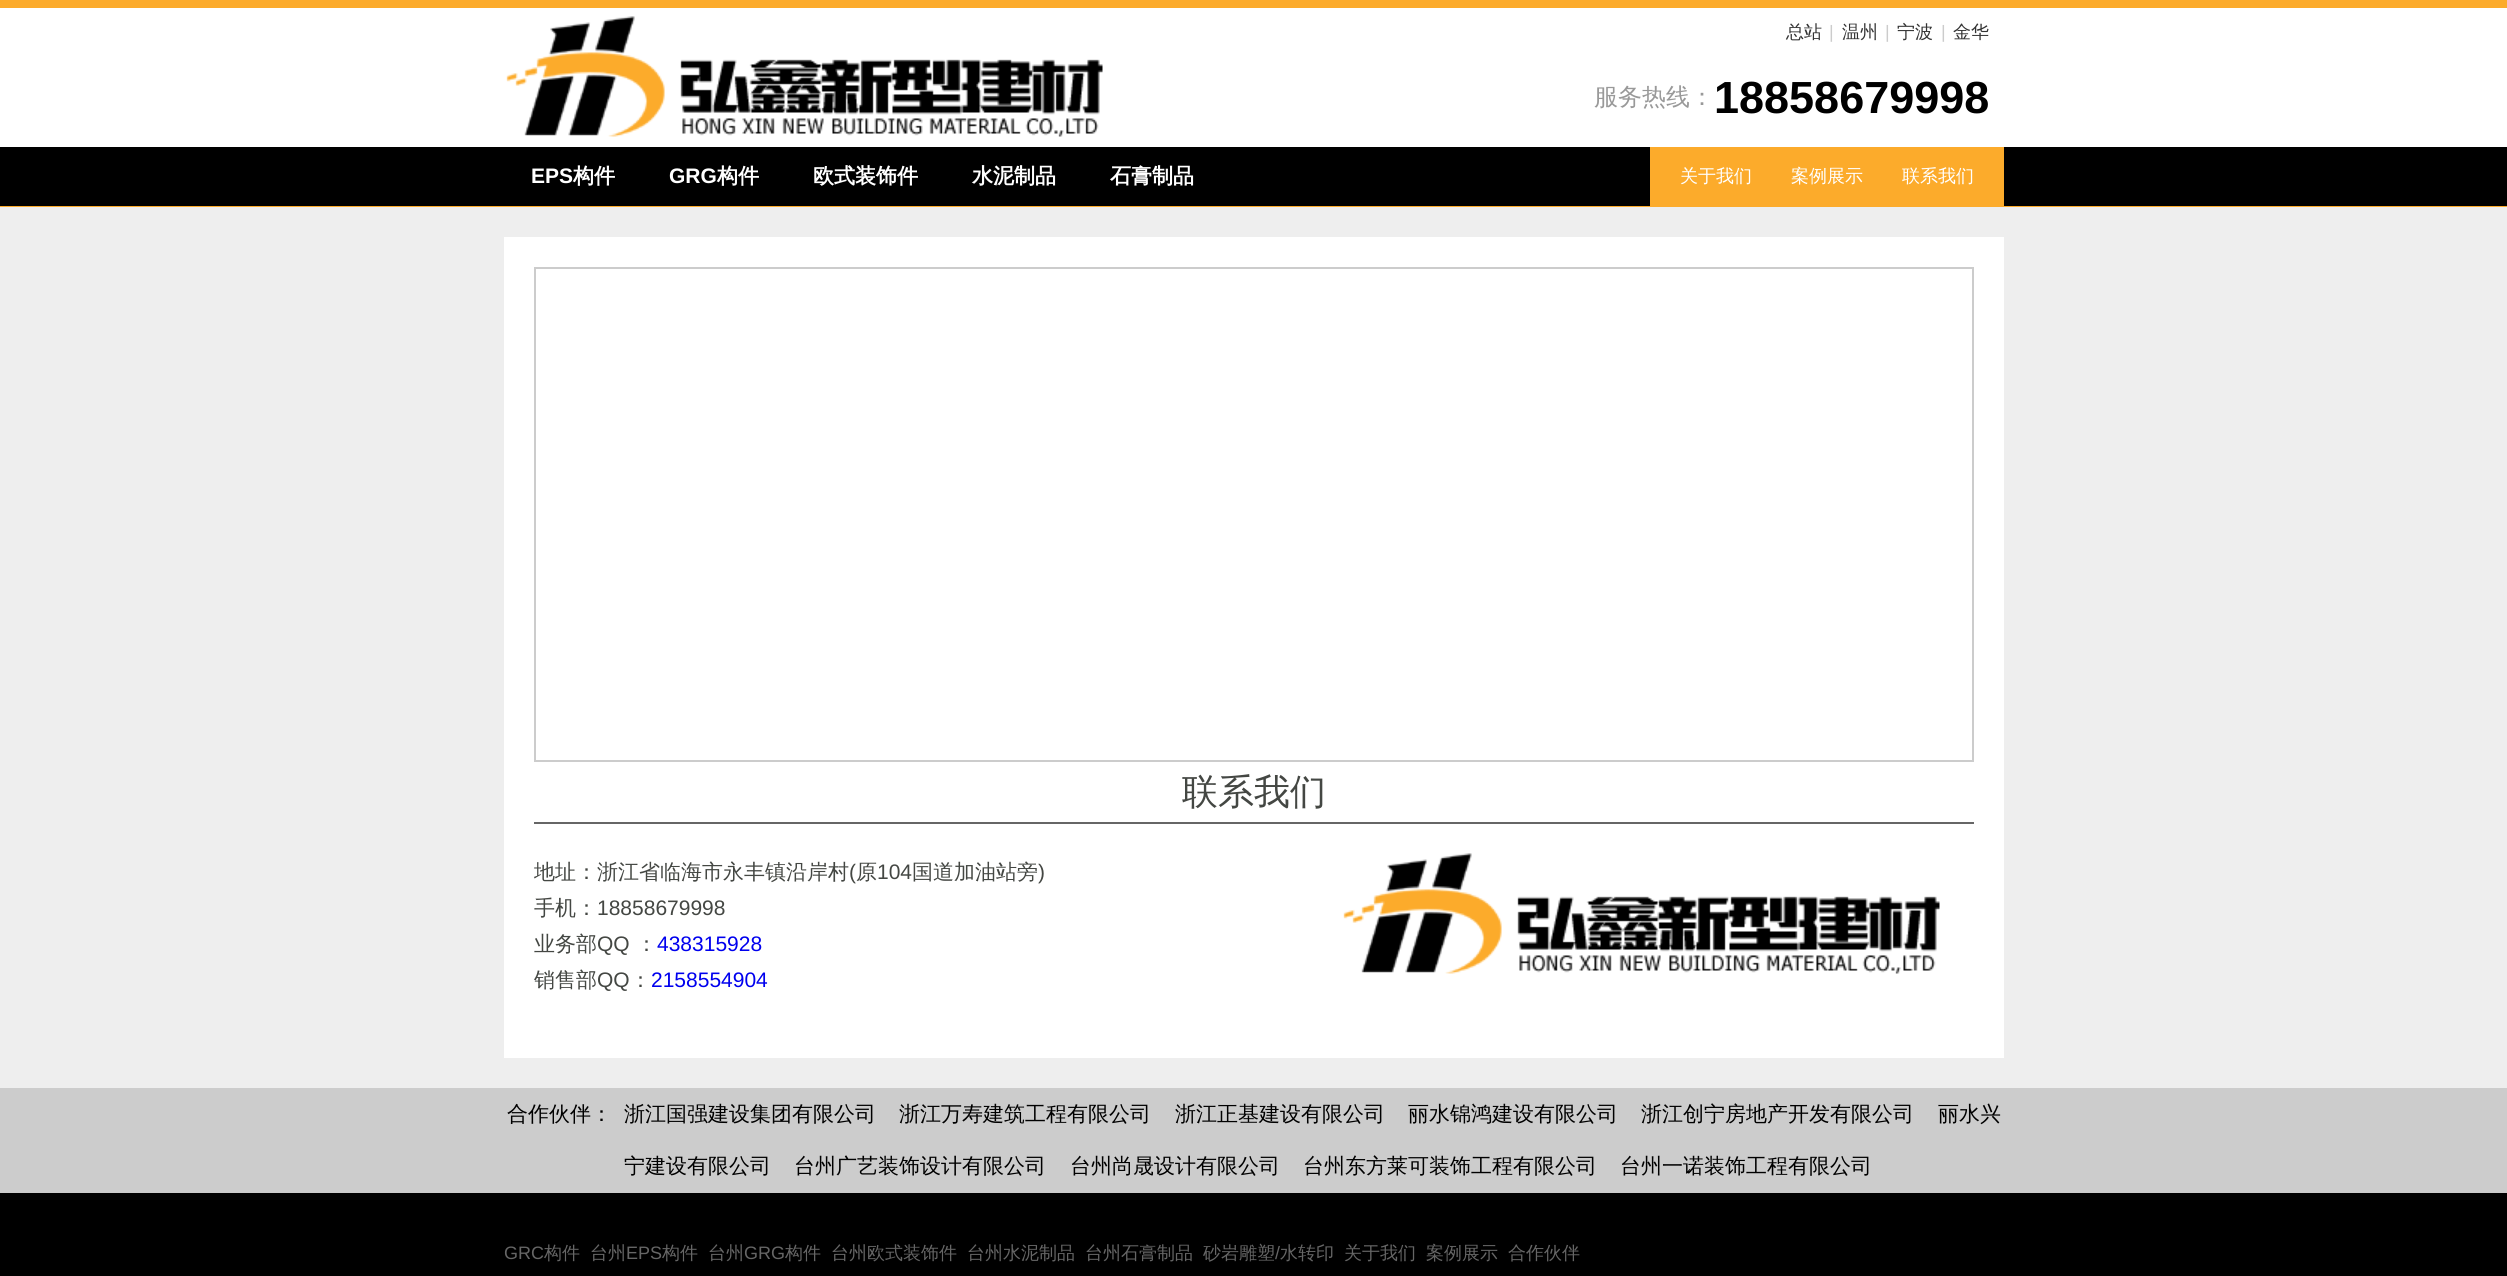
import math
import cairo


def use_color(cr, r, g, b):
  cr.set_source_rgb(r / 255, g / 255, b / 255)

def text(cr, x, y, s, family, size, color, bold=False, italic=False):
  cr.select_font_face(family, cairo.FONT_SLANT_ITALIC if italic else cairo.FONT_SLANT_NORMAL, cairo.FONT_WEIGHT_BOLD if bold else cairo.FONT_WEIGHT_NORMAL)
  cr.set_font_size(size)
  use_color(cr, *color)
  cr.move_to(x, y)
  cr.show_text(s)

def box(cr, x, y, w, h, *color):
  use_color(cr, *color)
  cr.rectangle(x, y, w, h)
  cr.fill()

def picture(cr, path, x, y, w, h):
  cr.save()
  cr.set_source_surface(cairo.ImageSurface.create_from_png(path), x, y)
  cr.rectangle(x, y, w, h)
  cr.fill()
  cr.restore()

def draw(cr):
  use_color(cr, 238, 238, 238)
  cr.paint()
  box(cr, 0, 0, 2507, 207, 252, 171, 43)
  box(cr, 0, 8, 2507, 139, 255, 255, 255)
  picture(cr, "img_01.png", 506, 16, 597, 121)
  box(cr, 0, 147, 2507, 59, 0, 0, 0)
  box(cr, 1650, 147, 354, 59, 252, 171, 43)
  box(cr, 504, 237, 1500, 821, 255, 255, 255)
  cr.rectangle(535, 268, 1438, 493)
  use_color(cr, 204, 204, 204)
  cr.stroke()
  box(cr, 534, 822, 1440, 2, 102, 102, 102)
  picture(cr, "img_02.png", 1343, 853, 597, 121)
  box(cr, 0, 1088, 2507, 105, 204, 204, 204)
  box(cr, 0, 1193, 2507, 83, 0, 0, 0)
  text(cr, 1786, 38, "总站", "WenQuanYi Zen Hei Medium", 18, (51, 51, 51))
  text(cr, 1829, 38, "|", "Liberation Sans", 18, (204, 204, 204))
  text(cr, 1842, 38, "温州", "WenQuanYi Zen Hei Medium", 18, (51, 51, 51))
  text(cr, 1885, 38, "|", "Liberation Sans", 18, (204, 204, 204))
  text(cr, 1897, 38, "宁波", "WenQuanYi Zen Hei Medium", 18, (51, 51, 51))
  text(cr, 1941, 38, "|", "Liberation Sans", 18, (204, 204, 204))
  text(cr, 1953, 38, "金华", "WenQuanYi Zen Hei Medium", 18, (51, 51, 51))
  text(cr, 1594, 105, "服务热线：", "WenQuanYi Zen Hei Medium", 24, (153, 153, 153))
  text(cr, 1714, 113, "18858679998", "Liberation Sans", 45, (0, 0, 0), bold=True)
  text(cr, 531, 183, "EPS", "Liberation Sans", 21, (255, 255, 255), bold=True)
  text(cr, 573, 183, "构件", "WenQuanYi Zen Hei", 21, (255, 255, 255), bold=True)
  text(cr, 669, 183, "GRG", "Liberation Sans", 21, (255, 255, 255), bold=True)
  text(cr, 717, 183, "构件", "WenQuanYi Zen Hei", 21, (255, 255, 255), bold=True)
  text(cr, 813, 183, "欧式装饰件", "WenQuanYi Zen Hei", 21, (255, 255, 255), bold=True)
  text(cr, 972, 183, "水泥制品", "WenQuanYi Zen Hei", 21, (255, 255, 255), bold=True)
  text(cr, 1110, 183, "石膏制品", "WenQuanYi Zen Hei", 21, (255, 255, 255), bold=True)
  text(cr, 1680, 182, "关于我们", "WenQuanYi Zen Hei Medium", 18, (255, 255, 255))
  text(cr, 1791, 182, "案例展示", "WenQuanYi Zen Hei Medium", 18, (255, 255, 255))
  text(cr, 1902, 182, "联系我们", "WenQuanYi Zen Hei Medium", 18, (255, 255, 255))
  text(cr, 1182, 804, "联系我们", "WenQuanYi Zen Hei Medium", 36, (68, 71, 67))
  text(cr, 534, 879, "地址：浙江省临海市永丰镇沿岸村", "WenQuanYi Zen Hei Medium", 21, (68, 71, 67))
  text(cr, 849, 879, "(", "Liberation Sans", 21, (68, 71, 67))
  text(cr, 856, 879, "原", "WenQuanYi Zen Hei Medium", 21, (68, 71, 67))
  text(cr, 877, 879, "104", "Liberation Sans", 21, (68, 71, 67))
  text(cr, 912, 879, "国道加油站旁", "WenQuanYi Zen Hei Medium", 21, (68, 71, 67))
  text(cr, 1038, 879, ")", "Liberation Sans", 21, (68, 71, 67))
  text(cr, 534, 915, "手机：", "WenQuanYi Zen Hei Medium", 21, (68, 71, 67))
  text(cr, 597, 915, "18858679998", "Liberation Sans", 21, (68, 71, 67))
  text(cr, 534, 951, "业务部", "WenQuanYi Zen Hei Medium", 21, (68, 71, 67))
  text(cr, 597, 951, "QQ", "Liberation Sans", 21, (68, 71, 67))
  text(cr, 636, 951, "：", "WenQuanYi Zen Hei Medium", 21, (68, 71, 67))
  text(cr, 657, 951, "438315928", "Liberation Sans", 21, (0, 0, 238))
  text(cr, 534, 987, "销售部", "WenQuanYi Zen Hei Medium", 21, (68, 71, 67))
  text(cr, 597, 987, "QQ", "Liberation Sans", 21, (68, 71, 67))
  text(cr, 630, 987, "：", "WenQuanYi Zen Hei Medium", 21, (68, 71, 67))
  text(cr, 651, 987, "2158554904", "Liberation Sans", 21, (0, 0, 238))
  text(cr, 507, 1121, "合作伙伴：", "WenQuanYi Zen Hei Medium", 21, (0, 0, 0))
  text(cr, 624, 1121, "浙江国强建设集团有限公司", "WenQuanYi Zen Hei Medium", 21, (0, 0, 0))
  text(cr, 899, 1121, "浙江万寿建筑工程有限公司", "WenQuanYi Zen Hei Medium", 21, (0, 0, 0))
  text(cr, 1175, 1121, "浙江正基建设有限公司", "WenQuanYi Zen Hei Medium", 21, (0, 0, 0))
  text(cr, 1408, 1121, "丽水锦鸿建设有限公司", "WenQuanYi Zen Hei Medium", 21, (0, 0, 0))
  text(cr, 1641, 1121, "浙江创宁房地产开发有限公司", "WenQuanYi Zen Hei Medium", 21, (0, 0, 0))
  text(cr, 1938, 1121, "丽水兴", "WenQuanYi Zen Hei Medium", 21, (0, 0, 0))
  text(cr, 624, 1173, "宁建设有限公司", "WenQuanYi Zen Hei Medium", 21, (0, 0, 0))
  text(cr, 794, 1173, "台州广艺装饰设计有限公司", "WenQuanYi Zen Hei Medium", 21, (0, 0, 0))
  text(cr, 1070, 1173, "台州尚晟设计有限公司", "WenQuanYi Zen Hei Medium", 21, (0, 0, 0))
  text(cr, 1303, 1173, "台州东方莱可装饰工程有限公司", "WenQuanYi Zen Hei Medium", 21, (0, 0, 0))
  text(cr, 1620, 1173, "台州一诺装饰工程有限公司", "WenQuanYi Zen Hei Medium", 21, (0, 0, 0))
  text(cr, 504, 1259, "GRC", "Liberation Sans", 18, (102, 102, 102))
  text(cr, 544, 1259, "构件", "WenQuanYi Zen Hei Medium", 18, (102, 102, 102))
  text(cr, 590, 1259, "台州", "WenQuanYi Zen Hei Medium", 18, (102, 102, 102))
  text(cr, 626, 1259, "EPS", "Liberation Sans", 18, (102, 102, 102))
  text(cr, 662, 1259, "构件", "WenQuanYi Zen Hei Medium", 18, (102, 102, 102))
  text(cr, 708, 1259, "台州", "WenQuanYi Zen Hei Medium", 18, (102, 102, 102))
  text(cr, 744, 1259, "GRG", "Liberation Sans", 18, (102, 102, 102))
  text(cr, 785, 1259, "构件", "WenQuanYi Zen Hei Medium", 18, (102, 102, 102))
  text(cr, 831, 1259, "台州欧式装饰件", "WenQuanYi Zen Hei Medium", 18, (102, 102, 102))
  text(cr, 967, 1259, "台州水泥制品", "WenQuanYi Zen Hei Medium", 18, (102, 102, 102))
  text(cr, 1085, 1259, "台州石膏制品", "WenQuanYi Zen Hei Medium", 18, (102, 102, 102))
  text(cr, 1203, 1259, "砂岩雕塑", "WenQuanYi Zen Hei Medium", 18, (102, 102, 102))
  text(cr, 1275, 1259, "/", "Liberation Sans", 18, (102, 102, 102))
  text(cr, 1280, 1259, "水转印", "WenQuanYi Zen Hei Medium", 18, (102, 102, 102))
  text(cr, 1344, 1259, "关于我们", "WenQuanYi Zen Hei Medium", 18, (102, 102, 102))
  text(cr, 1426, 1259, "案例展示", "WenQuanYi Zen Hei Medium", 18, (102, 102, 102))
  text(cr, 1508, 1259, "合作伙伴", "WenQuanYi Zen Hei Medium", 18, (102, 102, 102))


surface = cairo.ImageSurface(cairo.FORMAT_RGB24, 2507, 1276)
cr = cairo.Context(surface)
options = cairo.FontOptions()
options.set_hint_metrics(cairo.HINT_METRICS_OFF)
options.set_hint_style(cairo.HINT_STYLE_NONE)
cr.set_font_options(options)
cr.set_miter_limit(4)
draw(cr)
surface.write_to_png("out.png")
